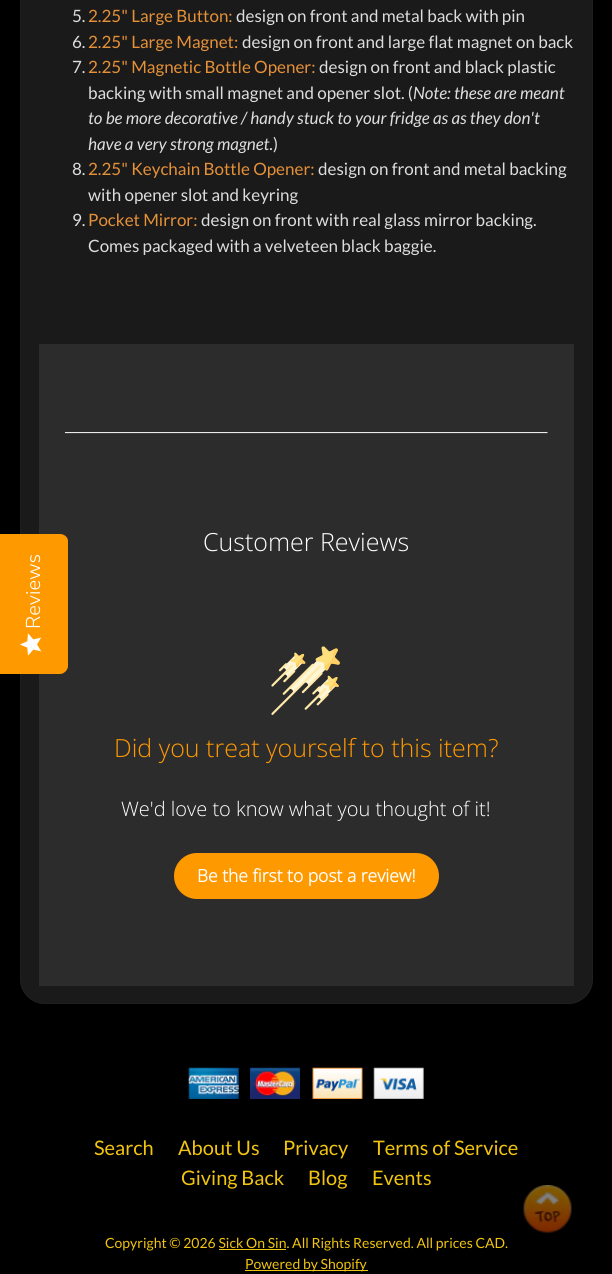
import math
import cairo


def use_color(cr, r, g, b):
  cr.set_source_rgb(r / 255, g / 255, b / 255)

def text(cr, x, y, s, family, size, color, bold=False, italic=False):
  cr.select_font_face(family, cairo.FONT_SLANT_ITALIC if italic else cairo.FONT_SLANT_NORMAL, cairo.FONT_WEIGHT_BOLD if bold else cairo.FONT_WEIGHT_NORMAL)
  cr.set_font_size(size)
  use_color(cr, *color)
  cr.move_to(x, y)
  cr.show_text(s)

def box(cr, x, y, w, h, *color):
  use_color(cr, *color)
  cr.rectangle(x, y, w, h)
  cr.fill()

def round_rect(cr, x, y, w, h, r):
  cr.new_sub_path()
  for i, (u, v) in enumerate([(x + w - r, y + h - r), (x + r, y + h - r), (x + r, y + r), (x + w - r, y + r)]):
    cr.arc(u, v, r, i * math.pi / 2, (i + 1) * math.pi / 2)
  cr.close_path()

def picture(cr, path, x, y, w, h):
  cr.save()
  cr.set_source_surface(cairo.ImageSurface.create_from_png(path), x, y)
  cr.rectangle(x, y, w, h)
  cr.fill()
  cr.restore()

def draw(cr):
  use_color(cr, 0, 0, 0)
  cr.paint()
  use_color(cr, 26, 26, 26)
  round_rect(cr, 20, -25, 573, 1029, 25)
  cr.fill()
  round_rect(cr, 20.5, -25.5, 572, 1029, 24.5)
  cr.set_source_rgba(0.133, 0.133, 0.133, 0.7)
  cr.set_line_width(1)
  cr.stroke()
  box(cr, 39, 344, 535, 642, 44, 44, 44)
  use_color(cr, 255, 153, 0)
  cr.new_path()
  cr.move_to(0, 674)
  cr.line_to(0, 534)
  cr.line_to(60, 534)
  cr.curve_to(64, 534, 68, 537, 68, 541)
  cr.line_to(68, 666)
  cr.curve_to(68, 670, 64, 674, 60, 674)
  cr.close_path()
  cr.fill()
  picture(cr, "img_01.png", 20, 633, 22, 23)
  picture(cr, "img_02.png", 65, 432, 483, 2)
  picture(cr, "img_03.png", 271, 646, 69, 69)
  round_rect(cr, 174, 853, 265, 46, 23)
  cr.fill()
  picture(cr, "img_04.png", 188, 1067, 51, 32)
  picture(cr, "img_05.png", 250, 1067, 50, 32)
  picture(cr, "img_06.png", 312, 1067, 51, 32)
  picture(cr, "img_07.png", 373, 1067, 51, 32)
  picture(cr, "img_08.png", 523, 1185, 49, 49)
  box(cr, 219, 1249, 67, 1, 241, 196, 15)
  box(cr, 245, 1270, 123, 1, 241, 196, 15)
  cr.save()
  cr.translate(40, 629)
  cr.rotate(-90 * math.pi / 180)
  text(cr, 0, 0, "Reviews", "Nunito Sans Light", 20, (255, 255, 255))
  cr.restore()
  text(cr, 72, 22, "5.", "Lato", 17, (221, 221, 221))
  text(cr, 88, 22, "2.25\" Large Button:", "Lato", 17, (230, 145, 56))
  text(cr, 236, 22, "design on front and metal back with pin", "Lato", 17, (221, 221, 221))
  text(cr, 72, 48, "6.", "Lato", 17, (221, 221, 221))
  text(cr, 88, 48, "2.25\" Large Magnet:", "Lato", 17, (230, 145, 56))
  text(cr, 242, 48, "design on front and large flat magnet on back", "Lato", 17, (221, 221, 221))
  text(cr, 72, 73, "7.", "Lato", 17, (221, 221, 221))
  text(cr, 88, 73, "2.25\" Magnetic Bottle Opener:", "Lato", 17, (230, 145, 56))
  text(cr, 319, 73, "design on front and black plastic", "Lato", 17, (221, 221, 221))
  text(cr, 88, 99, "backing with small magnet and opener slot. (", "Lato", 17, (221, 221, 221))
  text(cr, 413, 99, "Note: these are meant", "Lato", 17, (221, 221, 221), italic=True)
  text(cr, 88, 124, "to be more decorative / handy stuck to your fridge as as they don't", "Lato", 17, (221, 221, 221), italic=True)
  text(cr, 88, 150, "have a very strong magnet.", "Lato", 17, (221, 221, 221), italic=True)
  text(cr, 273, 150, ")", "Lato", 17, (221, 221, 221))
  text(cr, 72, 175, "8.", "Lato", 17, (221, 221, 221))
  text(cr, 88, 175, "2.25\" Keychain Bottle Opener:", "Lato", 17, (230, 145, 56))
  text(cr, 318, 175, "design on front and metal backing", "Lato", 17, (221, 221, 221))
  text(cr, 88, 201, "with opener slot and keyring", "Lato", 17, (221, 221, 221))
  text(cr, 72, 226, "9.", "Lato", 17, (221, 221, 221))
  text(cr, 88, 226, "Pocket Mirror:", "Lato", 17, (230, 145, 56))
  text(cr, 201, 226, "design on front with real glass mirror backing.", "Lato", 17, (221, 221, 221))
  text(cr, 88, 252, "Comes packaged with a velveteen black baggie.", "Lato", 17, (221, 221, 221))
  text(cr, 203, 551, "Customer Reviews", "Open Sans Light", 25, (255, 255, 255))
  text(cr, 114, 757, "Did you treat yourself to this item?", "Open Sans Light", 25, (255, 153, 0))
  text(cr, 121, 816, "We'd love to know what you thought of it!", "Open Sans Light", 20, (255, 255, 255))
  text(cr, 197, 882, "Be the first to post a review!", "Open Sans", 17.5, (255, 255, 255), bold=True)
  text(cr, 94, 1155, "Search", "Lato", 20, (241, 196, 15))
  text(cr, 178, 1155, "About Us", "Lato", 20, (241, 196, 15))
  text(cr, 283, 1155, "Privacy", "Lato", 20, (241, 196, 15))
  text(cr, 373, 1155, "Terms of Service", "Lato", 20, (241, 196, 15))
  text(cr, 181, 1185, "Giving Back", "Lato", 20, (241, 196, 15))
  text(cr, 308, 1185, "Blog", "Lato", 20, (241, 196, 15))
  text(cr, 372, 1185, "Events", "Lato", 20, (241, 196, 15))
  text(cr, 105, 1248, "Copyright © 2026 Sick On Sin. All Rights Reserved. All prices CAD.", "Lato", 14, (241, 196, 15))
  text(cr, 245, 1269, "Powered by Shopify", "Lato", 14, (241, 196, 15))


surface = cairo.ImageSurface(cairo.FORMAT_RGB24, 612, 1274)
cr = cairo.Context(surface)
options = cairo.FontOptions()
options.set_hint_metrics(cairo.HINT_METRICS_OFF)
options.set_hint_style(cairo.HINT_STYLE_NONE)
cr.set_font_options(options)
cr.set_miter_limit(4)
draw(cr)
surface.write_to_png("out.png")
